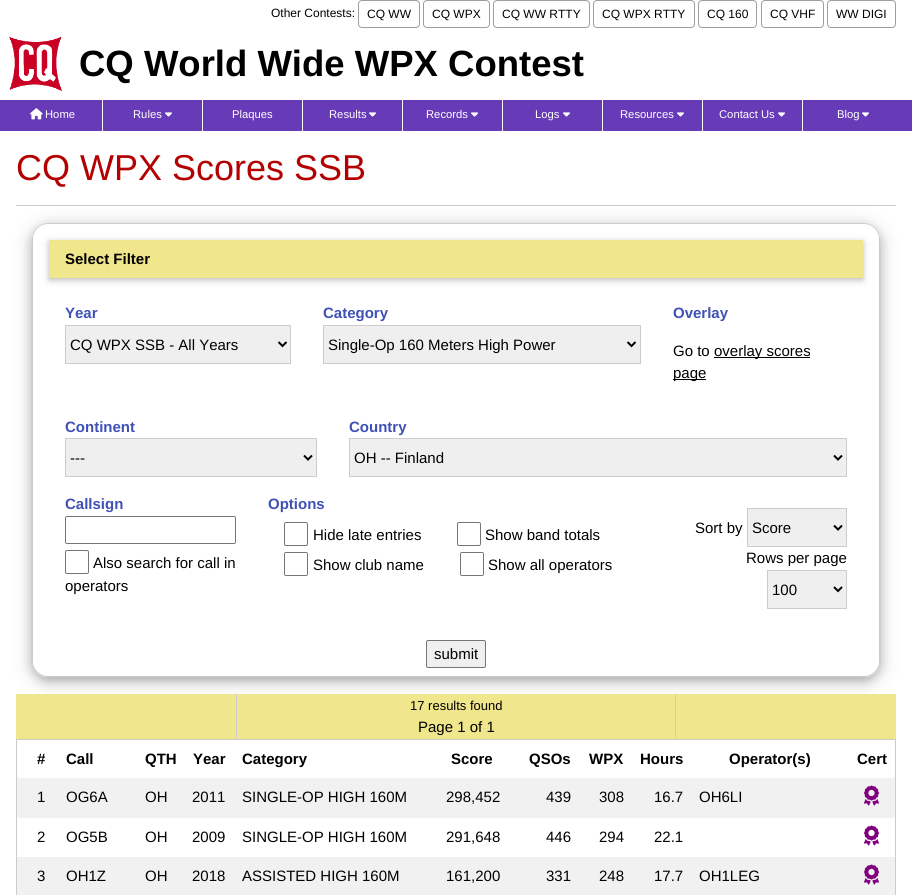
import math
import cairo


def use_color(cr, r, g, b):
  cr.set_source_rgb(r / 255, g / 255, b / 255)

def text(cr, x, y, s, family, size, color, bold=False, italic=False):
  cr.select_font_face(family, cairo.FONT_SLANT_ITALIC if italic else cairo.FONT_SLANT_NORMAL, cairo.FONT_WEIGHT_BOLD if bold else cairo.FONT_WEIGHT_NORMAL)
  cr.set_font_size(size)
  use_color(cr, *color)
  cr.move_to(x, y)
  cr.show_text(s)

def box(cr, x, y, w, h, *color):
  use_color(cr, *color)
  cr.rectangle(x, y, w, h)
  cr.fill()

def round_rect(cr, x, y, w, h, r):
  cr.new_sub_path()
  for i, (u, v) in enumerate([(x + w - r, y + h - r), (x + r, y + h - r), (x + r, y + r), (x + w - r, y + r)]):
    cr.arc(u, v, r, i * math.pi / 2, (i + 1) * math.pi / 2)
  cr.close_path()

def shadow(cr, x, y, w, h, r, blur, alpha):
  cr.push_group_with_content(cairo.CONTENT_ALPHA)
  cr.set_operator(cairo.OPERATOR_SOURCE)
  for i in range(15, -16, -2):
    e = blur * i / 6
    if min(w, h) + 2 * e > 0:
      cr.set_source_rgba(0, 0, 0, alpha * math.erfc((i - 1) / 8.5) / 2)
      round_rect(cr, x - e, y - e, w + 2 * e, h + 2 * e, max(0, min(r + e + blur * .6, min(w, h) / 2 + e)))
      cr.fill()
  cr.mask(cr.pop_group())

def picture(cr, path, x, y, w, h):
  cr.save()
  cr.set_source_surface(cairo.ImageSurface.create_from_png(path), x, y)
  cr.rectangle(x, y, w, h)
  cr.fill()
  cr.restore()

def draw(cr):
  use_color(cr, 255, 255, 255)
  cr.paint()
  round_rect(cr, 358.5, 0.5, 61, 27, 3.5)
  use_color(cr, 158, 158, 158)
  cr.set_line_width(1)
  cr.stroke()
  round_rect(cr, 423.5, 0.5, 66, 27, 3.5)
  cr.stroke()
  round_rect(cr, 493.5, 0.5, 96, 27, 3.5)
  cr.stroke()
  round_rect(cr, 593.5, 0.5, 101, 27, 3.5)
  cr.stroke()
  round_rect(cr, 698.5, 0.5, 58, 27, 3.5)
  cr.stroke()
  round_rect(cr, 761.5, 0.5, 62, 27, 3.5)
  cr.stroke()
  round_rect(cr, 827.5, 0.5, 68, 27, 3.5)
  cr.stroke()
  picture(cr, "img_01.png", 9, 36, 54, 55)
  box(cr, 0, 100, 912, 31, 103, 58, 183)
  box(cr, 102, 100, 1, 31, 255, 255, 255)
  picture(cr, "img_02.png", 30, 108, 13, 12)
  box(cr, 202, 100, 1, 31, 255, 255, 255)
  picture(cr, "img_03.png", 165, 112, 7, 5)
  box(cr, 302, 100, 1, 31, 255, 255, 255)
  box(cr, 402, 100, 1, 31, 255, 255, 255)
  picture(cr, "img_03.png", 369, 112, 7, 5)
  box(cr, 502, 100, 1, 31, 255, 255, 255)
  picture(cr, "img_03.png", 471, 112, 7, 5)
  box(cr, 602, 100, 1, 31, 255, 255, 255)
  picture(cr, "img_03.png", 563, 112, 7, 5)
  box(cr, 702, 100, 1, 31, 255, 255, 255)
  picture(cr, "img_03.png", 677, 112, 7, 5)
  box(cr, 802, 100, 1, 31, 255, 255, 255)
  picture(cr, "img_03.png", 778, 112, 7, 5)
  picture(cr, "img_03.png", 862, 112, 7, 5)
  box(cr, 16, 205, 880, 1, 204, 204, 204)
  cr.save()
  cr.set_fill_rule(cairo.FILL_RULE_EVEN_ODD)
  cr.new_path()
  cr.move_to(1, 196)
  cr.line_to(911, 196)
  cr.line_to(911, 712)
  cr.line_to(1, 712)
  cr.close_path()
  cr.move_to(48, 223)
  cr.line_to(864, 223)
  cr.curve_to(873, 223, 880, 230, 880, 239)
  cr.line_to(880, 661)
  cr.curve_to(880, 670, 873, 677, 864, 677)
  cr.line_to(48, 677)
  cr.curve_to(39, 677, 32, 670, 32, 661)
  cr.line_to(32, 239)
  cr.curve_to(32, 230, 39, 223, 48, 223)
  cr.close_path()
  cr.clip()
  use_color(cr, 0, 0, 0)
  shadow(cr, 32, 227, 848, 454, 16, 10, 0.19)
  cr.restore()
  cr.save()
  cr.set_fill_rule(cairo.FILL_RULE_EVEN_ODD)
  cr.new_path()
  cr.move_to(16, 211)
  cr.line_to(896, 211)
  cr.line_to(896, 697)
  cr.line_to(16, 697)
  cr.close_path()
  cr.move_to(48, 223)
  cr.line_to(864, 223)
  cr.curve_to(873, 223, 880, 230, 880, 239)
  cr.line_to(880, 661)
  cr.curve_to(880, 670, 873, 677, 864, 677)
  cr.line_to(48, 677)
  cr.curve_to(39, 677, 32, 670, 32, 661)
  cr.line_to(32, 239)
  cr.curve_to(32, 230, 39, 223, 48, 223)
  cr.close_path()
  cr.clip()
  use_color(cr, 0, 0, 0)
  shadow(cr, 32, 227, 848, 454, 16, 5, 0.2)
  cr.restore()
  round_rect(cr, 32.5, 223.5, 847, 453, 15.5)
  cr.stroke()
  use_color(cr, 0, 0, 0)
  shadow(cr, 49, 242, 814, 38, 0, 5, 0.12)
  shadow(cr, 49, 242, 814, 38, 0, 2.5, 0.16)
  box(cr, 49, 240, 814, 38, 240, 230, 140)
  use_color(cr, 239, 239, 239)
  cr.rectangle(65.5, 325.5, 225, 38)
  cr.fill_preserve()
  use_color(cr, 204, 204, 204)
  cr.stroke()
  cr.new_path()
  cr.move_to(278.5, 342)
  cr.line_to(282.5, 346)
  cr.line_to(286.5, 342)
  use_color(cr, 0, 0, 0)
  cr.set_line_width(2)
  cr.stroke()
  use_color(cr, 239, 239, 239)
  cr.rectangle(323.5, 325.5, 317, 38)
  cr.fill_preserve()
  use_color(cr, 204, 204, 204)
  cr.set_line_width(1)
  cr.stroke()
  cr.new_path()
  cr.move_to(627.5, 342)
  cr.line_to(631.5, 346)
  cr.line_to(635.5, 342)
  use_color(cr, 0, 0, 0)
  cr.set_line_width(2)
  cr.stroke()
  box(cr, 714, 357, 96, 1, 0, 0, 0)
  box(cr, 673, 379, 33, 1, 0, 0, 0)
  use_color(cr, 239, 239, 239)
  cr.rectangle(65.5, 438.5, 251, 38)
  cr.fill_preserve()
  use_color(cr, 204, 204, 204)
  cr.set_line_width(1)
  cr.stroke()
  cr.new_path()
  cr.move_to(304, 455.5)
  cr.line_to(308, 459.5)
  cr.line_to(312, 455.5)
  use_color(cr, 0, 0, 0)
  cr.set_line_width(2)
  cr.stroke()
  use_color(cr, 239, 239, 239)
  cr.rectangle(349.5, 438.5, 497, 38)
  cr.fill_preserve()
  use_color(cr, 204, 204, 204)
  cr.set_line_width(1)
  cr.stroke()
  cr.new_path()
  cr.move_to(834, 455.5)
  cr.line_to(838, 459.5)
  cr.line_to(842, 455.5)
  use_color(cr, 0, 0, 0)
  cr.set_line_width(2)
  cr.stroke()
  round_rect(cr, 65.5, 516.5, 170, 27, 1.5)
  use_color(cr, 118, 118, 118)
  cr.set_line_width(1)
  cr.stroke()
  round_rect(cr, 65.5, 550.5, 23, 23, 1.5)
  cr.stroke()
  round_rect(cr, 284.5, 522.5, 23, 23, 1.5)
  cr.stroke()
  round_rect(cr, 457.5, 522.5, 23, 23, 1.5)
  cr.stroke()
  round_rect(cr, 284.5, 552.5, 23, 23, 1.5)
  cr.stroke()
  round_rect(cr, 460.5, 552.5, 23, 23, 1.5)
  cr.stroke()
  use_color(cr, 239, 239, 239)
  cr.rectangle(747.5, 508.5, 99, 38)
  cr.fill_preserve()
  use_color(cr, 204, 204, 204)
  cr.stroke()
  cr.new_path()
  cr.move_to(834, 525.5)
  cr.line_to(838, 529.5)
  cr.line_to(842, 525.5)
  use_color(cr, 0, 0, 0)
  cr.set_line_width(2)
  cr.stroke()
  use_color(cr, 239, 239, 239)
  cr.rectangle(767.5, 570.5, 79, 38)
  cr.fill_preserve()
  use_color(cr, 204, 204, 204)
  cr.set_line_width(1)
  cr.stroke()
  cr.new_path()
  cr.move_to(834, 587)
  cr.line_to(838, 591)
  cr.line_to(842, 587)
  use_color(cr, 0, 0, 0)
  cr.set_line_width(2)
  cr.stroke()
  use_color(cr, 239, 239, 239)
  round_rect(cr, 426.5, 640.5, 59, 27, 1.5)
  cr.fill_preserve()
  use_color(cr, 118, 118, 118)
  cr.set_line_width(1)
  cr.stroke()
  box(cr, 16, 694, 880, 45, 240, 230, 140)
  box(cr, 675, 694, 1, 45, 204, 204, 204)
  box(cr, 236, 694, 1, 45, 204, 204, 204)
  box(cr, 16, 739, 880, 1, 204, 204, 204)
  box(cr, 895, 739, 1, 156, 204, 204, 204)
  box(cr, 16, 739, 1, 156, 204, 204, 204)
  box(cr, 17, 778, 878, 40, 241, 241, 241)
  picture(cr, "img_04.png", 864, 785, 15, 21)
  picture(cr, "img_05.png", 864, 825, 15, 21)
  box(cr, 17, 857, 878, 38, 241, 241, 241)
  picture(cr, "img_04.png", 864, 864, 15, 21)
  text(cr, 271, 17, "Other Contests:", "Liberation Sans", 12, (0, 0, 0))
  text(cr, 367, 18, "CQ WW", "Liberation Sans", 12, (0, 0, 0))
  text(cr, 432, 18, "CQ WPX", "Liberation Sans", 12, (0, 0, 0))
  text(cr, 502, 18, "CQ WW RTTY", "Liberation Sans", 12, (0, 0, 0))
  text(cr, 602, 18, "CQ WPX RTTY", "Liberation Sans", 12, (0, 0, 0))
  text(cr, 707, 18, "CQ 160", "Liberation Sans", 12, (0, 0, 0))
  text(cr, 770, 18, "CQ VHF", "Liberation Sans", 12, (0, 0, 0))
  text(cr, 836, 18, "WW DIGI", "Liberation Sans", 12, (0, 0, 0))
  text(cr, 79, 76, "CQ World Wide WPX Contest", "Liberation Sans", 36.5, (0, 0, 0), bold=True)
  text(cr, 45, 118, "Home", "Liberation Sans", 11.25, (255, 255, 255))
  text(cr, 133, 118, "Rules", "Liberation Sans", 11.25, (255, 255, 255))
  text(cr, 232, 118, "Plaques", "Liberation Sans", 11.25, (255, 255, 255))
  text(cr, 329, 118, "Results", "Liberation Sans", 11.25, (255, 255, 255))
  text(cr, 426, 118, "Records", "Liberation Sans", 11.25, (255, 255, 255))
  text(cr, 535, 118, "Logs", "Liberation Sans", 11.25, (255, 255, 255))
  text(cr, 620, 118, "Resources", "Liberation Sans", 11.25, (255, 255, 255))
  text(cr, 719, 118, "Contact Us", "Liberation Sans", 11.25, (255, 255, 255))
  text(cr, 837, 118, "Blog", "Liberation Sans", 11.25, (255, 255, 255))
  text(cr, 16, 180, "CQ WPX Scores SSB", "Liberation Sans", 36, (179, 0, 0))
  text(cr, 65, 264, "Select Filter", "Liberation Sans", 15, (0, 0, 0), bold=True)
  text(cr, 65, 318, "Year", "Liberation Sans", 15, (63, 81, 181), bold=True)
  text(cr, 70, 350, "CQ WPX SSB - All Years", "Liberation Sans", 15, (0, 0, 0))
  text(cr, 323, 318, "Category", "Liberation Sans", 15, (63, 81, 181), bold=True)
  text(cr, 328, 350, "Single-Op 160 Meters High Power", "Liberation Sans", 15, (0, 0, 0))
  text(cr, 673, 318, "Overlay", "Liberation Sans", 15, (63, 81, 181), bold=True)
  text(cr, 673, 356, "Go to", "Liberation Sans", 15, (0, 0, 0))
  text(cr, 714, 356, "overlay scores", "Liberation Sans", 15, (0, 0, 0))
  text(cr, 673, 378, "page", "Liberation Sans", 15, (0, 0, 0))
  text(cr, 65, 432, "Continent", "Liberation Sans", 15, (63, 81, 181), bold=True)
  text(cr, 70, 463, "---", "Liberation Sans", 15, (0, 0, 0))
  text(cr, 349, 432, "Country", "Liberation Sans", 15, (63, 81, 181), bold=True)
  text(cr, 354, 463, "OH -- Finland", "Liberation Sans", 15, (0, 0, 0))
  text(cr, 65, 509, "Callsign", "Liberation Sans", 15, (63, 81, 181), bold=True)
  text(cr, 93, 568, "Also search for call in", "Liberation Sans", 15, (0, 0, 0))
  text(cr, 65, 591, "operators", "Liberation Sans", 15, (0, 0, 0))
  text(cr, 268, 509, "Options", "Liberation Sans", 15, (63, 81, 181), bold=True)
  text(cr, 313, 540, "Hide late entries", "Liberation Sans", 15, (0, 0, 0))
  text(cr, 485, 540, "Show band totals", "Liberation Sans", 15, (0, 0, 0))
  text(cr, 313, 570, "Show club name", "Liberation Sans", 15, (0, 0, 0))
  text(cr, 488, 570, "Show all operators", "Liberation Sans", 15, (0, 0, 0))
  text(cr, 695, 533, "Sort by", "Liberation Sans", 15, (0, 0, 0))
  text(cr, 752, 533, "Score", "Liberation Sans", 15, (0, 0, 0))
  text(cr, 746, 563, "Rows per page", "Liberation Sans", 15, (0, 0, 0))
  text(cr, 772, 595, "100", "Liberation Sans", 15, (0, 0, 0))
  text(cr, 434, 659, "submit", "Liberation Sans", 15, (0, 0, 0))
  text(cr, 410, 710, "17 results found", "Liberation Sans", 13, (0, 0, 0))
  text(cr, 418, 732, "Page 1 of 1", "Liberation Sans", 15, (0, 0, 0))
  text(cr, 37, 764, "#", "Liberation Sans", 15, (0, 0, 0), bold=True)
  text(cr, 66, 764, "Call", "Liberation Sans", 15, (0, 0, 0), bold=True)
  text(cr, 145, 764, "QTH", "Liberation Sans", 15, (0, 0, 0), bold=True)
  text(cr, 193, 764, "Year", "Liberation Sans", 15, (0, 0, 0), bold=True)
  text(cr, 242, 764, "Category", "Liberation Sans", 15, (0, 0, 0), bold=True)
  text(cr, 451, 764, "Score", "Liberation Sans", 15, (0, 0, 0), bold=True)
  text(cr, 529, 764, "QSOs", "Liberation Sans", 15, (0, 0, 0), bold=True)
  text(cr, 589, 764, "WPX", "Liberation Sans", 15, (0, 0, 0), bold=True)
  text(cr, 640, 764, "Hours", "Liberation Sans", 15, (0, 0, 0), bold=True)
  text(cr, 729, 764, "Operator(s)", "Liberation Sans", 15, (0, 0, 0), bold=True)
  text(cr, 857, 764, "Cert", "Liberation Sans", 15, (0, 0, 0), bold=True)
  text(cr, 37, 802, "1", "Liberation Sans", 15, (0, 0, 0))
  text(cr, 66, 802, "OG6A", "Liberation Sans", 15, (0, 0, 0))
  text(cr, 145, 802, "OH", "Liberation Sans", 15, (0, 0, 0))
  text(cr, 192, 802, "2011", "Liberation Sans", 15, (0, 0, 0))
  text(cr, 242, 802, "SINGLE-OP HIGH 160M", "Liberation Sans", 15, (0, 0, 0))
  text(cr, 446, 802, "298,452", "Liberation Sans", 15, (0, 0, 0))
  text(cr, 546, 802, "439", "Liberation Sans", 15, (0, 0, 0))
  text(cr, 599, 802, "308", "Liberation Sans", 15, (0, 0, 0))
  text(cr, 654, 802, "16.7", "Liberation Sans", 15, (0, 0, 0))
  text(cr, 699, 802, "OH6LI", "Liberation Sans", 15, (0, 0, 0))
  text(cr, 37, 842, "2", "Liberation Sans", 15, (0, 0, 0))
  text(cr, 66, 842, "OG5B", "Liberation Sans", 15, (0, 0, 0))
  text(cr, 145, 842, "OH", "Liberation Sans", 15, (0, 0, 0))
  text(cr, 192, 842, "2009", "Liberation Sans", 15, (0, 0, 0))
  text(cr, 242, 842, "SINGLE-OP HIGH 160M", "Liberation Sans", 15, (0, 0, 0))
  text(cr, 446, 842, "291,648", "Liberation Sans", 15, (0, 0, 0))
  text(cr, 546, 842, "446", "Liberation Sans", 15, (0, 0, 0))
  text(cr, 599, 842, "294", "Liberation Sans", 15, (0, 0, 0))
  text(cr, 654, 842, "22.1", "Liberation Sans", 15, (0, 0, 0))
  text(cr, 37, 881, "3", "Liberation Sans", 15, (0, 0, 0))
  text(cr, 66, 881, "OH1Z", "Liberation Sans", 15, (0, 0, 0))
  text(cr, 145, 881, "OH", "Liberation Sans", 15, (0, 0, 0))
  text(cr, 192, 881, "2018", "Liberation Sans", 15, (0, 0, 0))
  text(cr, 242, 881, "ASSISTED HIGH 160M", "Liberation Sans", 15, (0, 0, 0))
  text(cr, 446, 881, "161,200", "Liberation Sans", 15, (0, 0, 0))
  text(cr, 546, 881, "331", "Liberation Sans", 15, (0, 0, 0))
  text(cr, 599, 881, "248", "Liberation Sans", 15, (0, 0, 0))
  text(cr, 654, 881, "17.7", "Liberation Sans", 15, (0, 0, 0))
  text(cr, 699, 881, "OH1LEG", "Liberation Sans", 15, (0, 0, 0))


surface = cairo.ImageSurface(cairo.FORMAT_RGB24, 912, 895)
cr = cairo.Context(surface)
options = cairo.FontOptions()
options.set_hint_metrics(cairo.HINT_METRICS_OFF)
options.set_hint_style(cairo.HINT_STYLE_NONE)
cr.set_font_options(options)
cr.set_miter_limit(4)
draw(cr)
surface.write_to_png("out.png")
